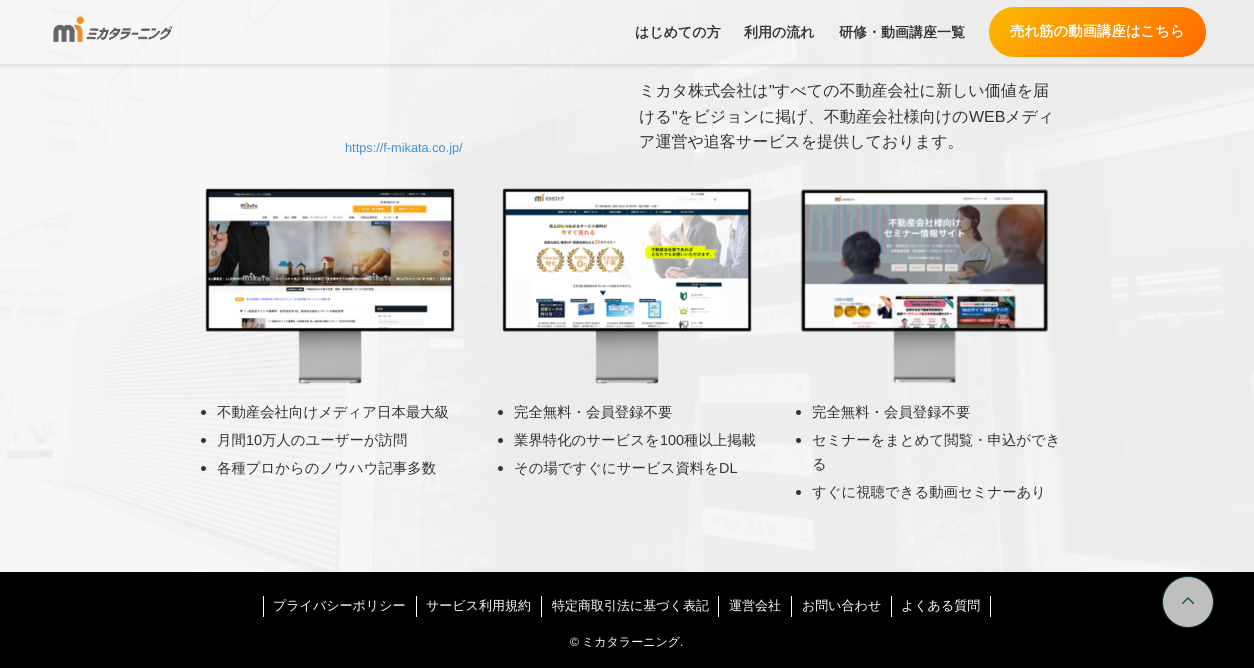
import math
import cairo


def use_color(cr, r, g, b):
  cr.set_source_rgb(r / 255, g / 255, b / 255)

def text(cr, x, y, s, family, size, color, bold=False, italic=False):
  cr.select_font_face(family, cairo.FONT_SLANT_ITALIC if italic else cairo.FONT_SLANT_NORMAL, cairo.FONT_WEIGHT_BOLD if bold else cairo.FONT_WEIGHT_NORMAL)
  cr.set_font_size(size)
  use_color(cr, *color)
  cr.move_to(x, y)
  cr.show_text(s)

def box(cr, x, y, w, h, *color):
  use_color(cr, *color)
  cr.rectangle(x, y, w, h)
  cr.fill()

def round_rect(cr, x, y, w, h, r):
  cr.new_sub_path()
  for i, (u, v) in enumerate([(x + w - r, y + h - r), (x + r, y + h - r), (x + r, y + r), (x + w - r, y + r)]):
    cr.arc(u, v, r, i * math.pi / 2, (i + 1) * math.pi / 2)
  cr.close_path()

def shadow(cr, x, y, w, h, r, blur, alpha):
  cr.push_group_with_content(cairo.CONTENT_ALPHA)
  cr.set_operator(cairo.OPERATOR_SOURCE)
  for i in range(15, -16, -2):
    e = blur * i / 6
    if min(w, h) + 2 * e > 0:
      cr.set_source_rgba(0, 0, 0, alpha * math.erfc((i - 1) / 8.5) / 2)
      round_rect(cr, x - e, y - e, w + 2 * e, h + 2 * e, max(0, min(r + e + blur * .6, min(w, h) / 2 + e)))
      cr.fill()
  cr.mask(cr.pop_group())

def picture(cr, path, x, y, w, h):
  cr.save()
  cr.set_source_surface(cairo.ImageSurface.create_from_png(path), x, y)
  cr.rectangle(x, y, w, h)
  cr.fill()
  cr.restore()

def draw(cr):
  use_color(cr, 255, 255, 255)
  cr.paint()
  picture(cr, "img_02.png", 0, 0, 1254, 572)
  cr.save()
  cr.rectangle(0, 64, 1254, 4)
  cr.clip()
  use_color(cr, 0, 0, 0)
  shadow(cr, 0, 2, 1254, 64, 0, 2, 0.12)
  cr.restore()
  picture(cr, "img_01.png", 53, 16, 120, 26)
  gradient = cairo.LinearGradient(1031, -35, 1164, 99)
  gradient.add_color_stop_rgba(0, 0.988, 0.725, 0, 1)
  gradient.add_color_stop_rgba(1, 1, 0.412, 0, 1)
  cr.set_source(gradient)
  round_rect(cr, 989, 7, 217, 50, 25)
  cr.fill()
  picture(cr, "img_03.png", 205, 188, 250, 196)
  use_color(cr, 51, 51, 51)
  cr.arc(203.5, 412.5, 2.5, 0, 2 * math.pi)
  cr.fill()
  cr.arc(203.5, 440.5, 2.5, 0, 2 * math.pi)
  cr.fill()
  cr.arc(203.5, 468.5, 2.5, 0, 2 * math.pi)
  cr.fill()
  picture(cr, "img_04.png", 502, 188, 250, 196)
  cr.arc(500.5, 412.5, 2.5, 0, 2 * math.pi)
  cr.fill()
  cr.arc(500.5, 440.5, 2.5, 0, 2 * math.pi)
  cr.fill()
  cr.arc(500.5, 468.5, 2.5, 0, 2 * math.pi)
  cr.fill()
  picture(cr, "img_05.png", 800, 189, 249, 195)
  cr.arc(798.5, 412.5, 2.5, 0, 2 * math.pi)
  cr.fill()
  cr.arc(798.5, 440.5, 2.5, 0, 2 * math.pi)
  cr.fill()
  cr.arc(798.5, 492.5, 2.5, 0, 2 * math.pi)
  cr.fill()
  box(cr, 0, 572, 1254, 96, 0, 0, 0)
  box(cr, 416, 596, 1, 21, 255, 255, 255)
  box(cr, 263, 596, 1, 21, 255, 255, 255)
  box(cr, 541, 596, 1, 21, 255, 255, 255)
  box(cr, 718, 596, 1, 21, 255, 255, 255)
  box(cr, 791, 596, 1, 21, 255, 255, 255)
  box(cr, 891, 596, 1, 21, 255, 255, 255)
  box(cr, 990, 596, 1, 21, 255, 255, 255)
  use_color(cr, 191, 191, 191)
  cr.arc(1188, 602, 25.5, 0, 2 * math.pi)
  cr.fill_preserve()
  use_color(cr, 3, 42, 57)
  cr.set_line_width(1)
  cr.stroke()
  picture(cr, "img_06.png", 1181, 597, 14, 8)
  text(cr, 635, 37, "はじめての方", "WenQuanYi Zen Hei", 14, (51, 51, 51), bold=True)
  text(cr, 744, 37, "利用の流れ", "WenQuanYi Zen Hei", 14, (51, 51, 51), bold=True)
  text(cr, 839, 37, "研修・動画講座一覧", "WenQuanYi Zen Hei", 14, (51, 51, 51), bold=True)
  text(cr, 1010, 36, "売れ筋の動画講座はこちら", "WenQuanYi Zen Hei", 14.4, (255, 255, 255), bold=True)
  text(cr, 345, 152, "https://f-mikata.co.jp/", "Liberation Sans", 12.75, (62, 143, 218))
  text(cr, 639, 96, "ミカタ株式会社は", "WenQuanYi Zen Hei Medium", 16, (51, 51, 51))
  text(cr, 769, 96, "\"", "Liberation Sans", 16, (51, 51, 51))
  text(cr, 774, 96, "すべての不動産会社に新しい価値を届", "WenQuanYi Zen Hei Medium", 16, (51, 51, 51))
  text(cr, 639, 122, "ける", "WenQuanYi Zen Hei Medium", 16, (51, 51, 51))
  text(cr, 672, 122, "\"", "Liberation Sans", 16, (51, 51, 51))
  text(cr, 677, 122, "をビジョンに掲げ、不動産会社様向けの", "WenQuanYi Zen Hei Medium", 16, (51, 51, 51))
  text(cr, 969, 122, "WEB", "Liberation Sans", 16, (51, 51, 51))
  text(cr, 1005, 122, "メディ", "WenQuanYi Zen Hei Medium", 16, (51, 51, 51))
  text(cr, 639, 147, "ア運営や追客サービスを提供しております。", "WenQuanYi Zen Hei Medium", 16, (51, 51, 51))
  text(cr, 217, 417, "不動産会社向けメディア日本最大級", "WenQuanYi Zen Hei Medium", 14.4, (51, 51, 51))
  text(cr, 217, 445, "月間", "WenQuanYi Zen Hei Medium", 14.4, (51, 51, 51))
  text(cr, 246, 445, "10", "Liberation Sans", 14.4, (51, 51, 51))
  text(cr, 262, 445, "万人のユーザーが訪問", "WenQuanYi Zen Hei Medium", 14.4, (51, 51, 51))
  text(cr, 217, 473, "各種プロからのノウハウ記事多数", "WenQuanYi Zen Hei Medium", 14.4, (51, 51, 51))
  text(cr, 514, 417, "完全無料・会員登録不要", "WenQuanYi Zen Hei Medium", 14.4, (51, 51, 51))
  text(cr, 514, 445, "業界特化のサービスを", "WenQuanYi Zen Hei Medium", 14.4, (51, 51, 51))
  text(cr, 660, 445, "100", "Liberation Sans", 14.4, (51, 51, 51))
  text(cr, 684, 445, "種以上掲載", "WenQuanYi Zen Hei Medium", 14.4, (51, 51, 51))
  text(cr, 514, 473, "その場ですぐにサービス資料を", "WenQuanYi Zen Hei Medium", 14.4, (51, 51, 51))
  text(cr, 719, 473, "DL", "Liberation Sans", 14.4, (51, 51, 51))
  text(cr, 812, 417, "完全無料・会員登録不要", "WenQuanYi Zen Hei Medium", 14.4, (51, 51, 51))
  text(cr, 812, 445, "セミナーをまとめて閲覧・申込ができ", "WenQuanYi Zen Hei Medium", 14.4, (51, 51, 51))
  text(cr, 812, 469, "る", "WenQuanYi Zen Hei Medium", 14.4, (51, 51, 51))
  text(cr, 812, 497, "すぐに視聴できる動画セミナーあり", "WenQuanYi Zen Hei Medium", 14.4, (51, 51, 51))
  text(cr, 273, 610, "プライバシーポリシー", "WenQuanYi Zen Hei Medium", 13, (255, 255, 255))
  text(cr, 426, 610, "サービス利用規約", "WenQuanYi Zen Hei Medium", 13, (255, 255, 255))
  text(cr, 552, 610, "特定商取引法に基づく表記", "WenQuanYi Zen Hei Medium", 13, (255, 255, 255))
  text(cr, 729, 610, "運営会社", "WenQuanYi Zen Hei Medium", 13, (255, 255, 255))
  text(cr, 802, 610, "お問い合わせ", "WenQuanYi Zen Hei Medium", 13, (255, 255, 255))
  text(cr, 901, 610, "よくある質問", "WenQuanYi Zen Hei Medium", 13, (255, 255, 255))
  text(cr, 570, 646, "©", "Liberation Sans", 12, (255, 255, 255))
  text(cr, 582, 646, "ミカタラーニング", "WenQuanYi Zen Hei Medium", 12, (255, 255, 255))
  text(cr, 680, 646, ".", "Liberation Sans", 12, (255, 255, 255))


surface = cairo.ImageSurface(cairo.FORMAT_RGB24, 1254, 668)
cr = cairo.Context(surface)
options = cairo.FontOptions()
options.set_hint_metrics(cairo.HINT_METRICS_OFF)
options.set_hint_style(cairo.HINT_STYLE_NONE)
cr.set_font_options(options)
cr.set_miter_limit(4)
draw(cr)
surface.write_to_png("out.png")
